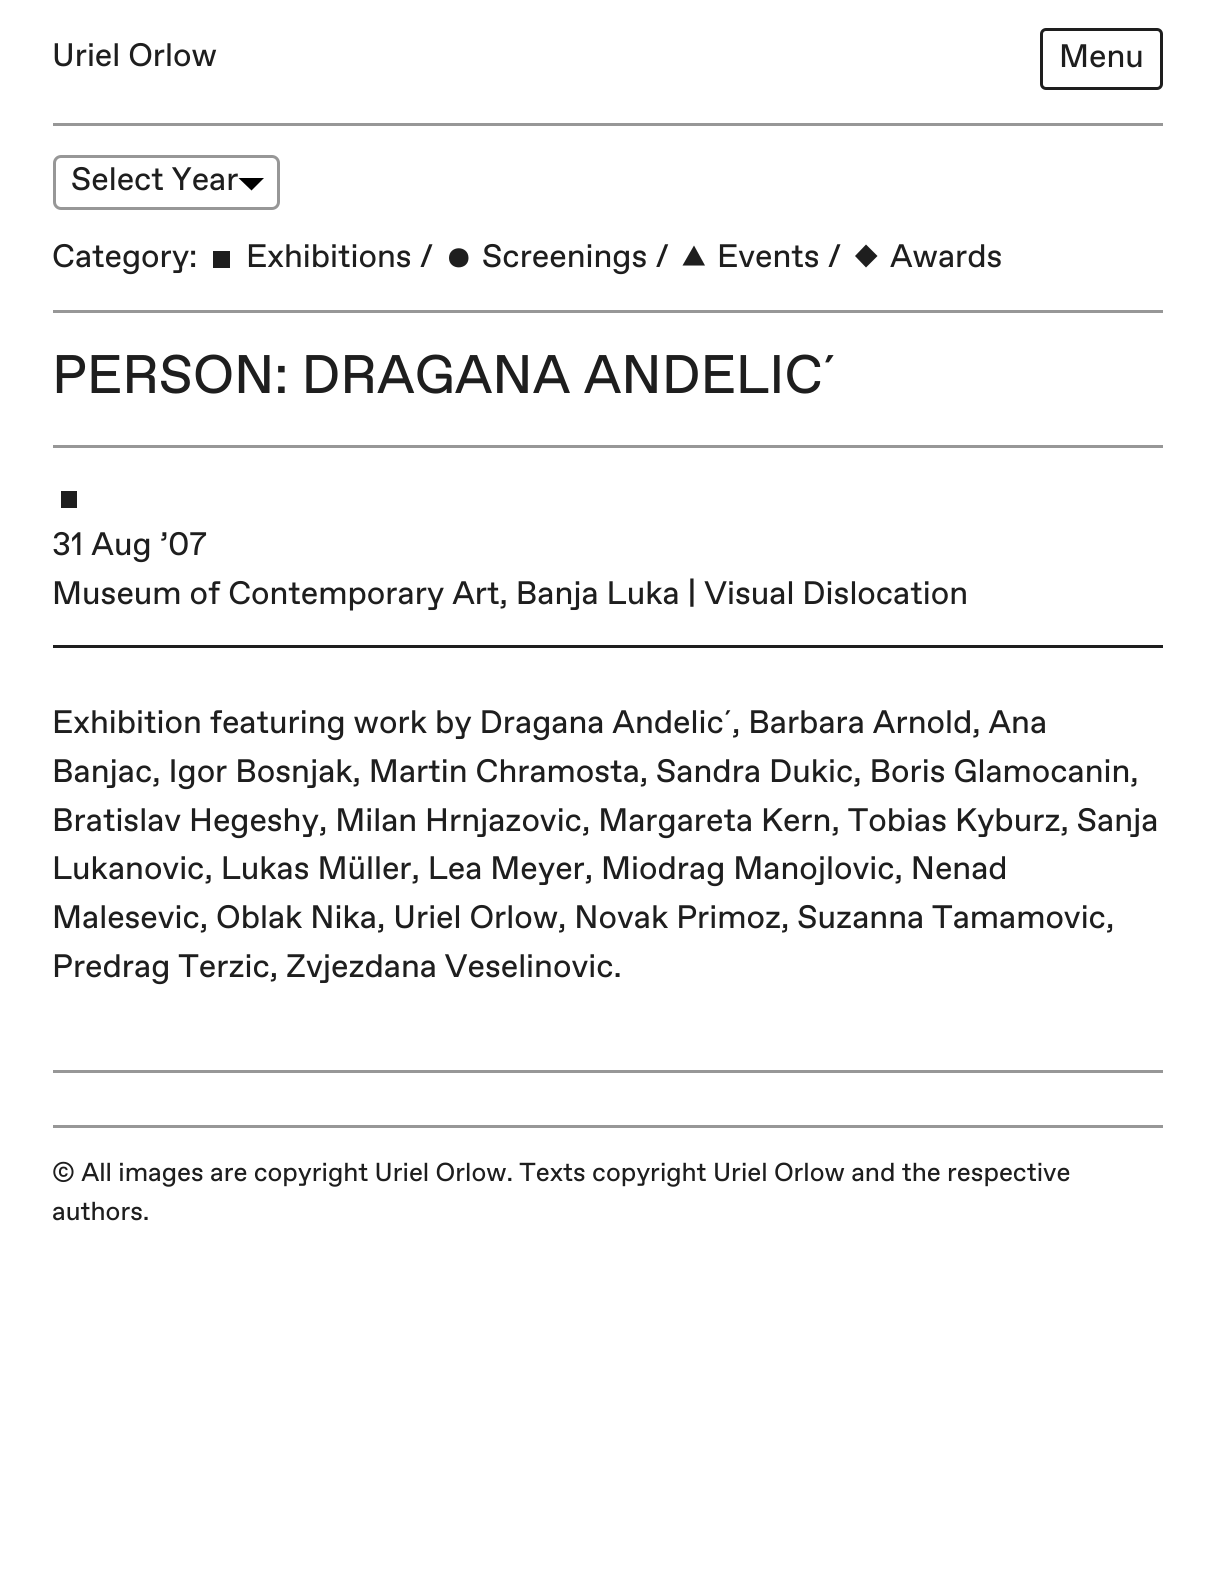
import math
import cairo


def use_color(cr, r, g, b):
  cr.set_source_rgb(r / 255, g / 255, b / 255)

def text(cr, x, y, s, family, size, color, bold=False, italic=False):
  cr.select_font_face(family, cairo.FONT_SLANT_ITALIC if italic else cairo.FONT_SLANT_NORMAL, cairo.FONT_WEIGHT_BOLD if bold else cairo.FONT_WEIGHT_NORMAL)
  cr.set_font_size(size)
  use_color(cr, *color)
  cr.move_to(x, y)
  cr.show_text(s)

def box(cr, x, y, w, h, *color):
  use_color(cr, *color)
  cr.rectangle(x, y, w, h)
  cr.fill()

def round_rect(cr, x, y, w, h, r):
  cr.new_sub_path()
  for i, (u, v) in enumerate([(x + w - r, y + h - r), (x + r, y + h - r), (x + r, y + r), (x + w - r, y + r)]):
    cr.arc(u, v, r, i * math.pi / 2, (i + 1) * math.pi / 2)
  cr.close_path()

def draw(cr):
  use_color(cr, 255, 255, 255)
  cr.paint()
  round_rect(cr, 1041.5, 29.5, 120, 59, 4.5)
  use_color(cr, 30, 30, 30)
  cr.set_line_width(3)
  cr.stroke()
  box(cr, 53, 123, 1110, 3, 151, 151, 151)
  box(cr, 53, 310, 1110, 3, 151, 151, 151)
  use_color(cr, 0, 0, 0)
  cr.new_path()
  cr.move_to(251.5, 190.5)
  cr.line_to(238.5, 178)
  cr.line_to(264, 178)
  cr.close_path()
  cr.fill()
  round_rect(cr, 54.5, 156.5, 224, 52, 6.5)
  use_color(cr, 151, 151, 151)
  cr.stroke()
  box(cr, 213, 251, 17, 17, 30, 30, 30)
  cr.new_path()
  cr.move_to(468.5, 258)
  cr.curve_to(468.5, 270.5, 449, 270.5, 449, 258)
  cr.curve_to(449, 245, 468.5, 245, 468.5, 258)
  cr.close_path()
  cr.fill()
  cr.new_path()
  cr.move_to(682.5, 265.5)
  cr.line_to(694, 245.5)
  cr.line_to(705, 265.5)
  cr.close_path()
  cr.fill()
  cr.new_path()
  cr.move_to(866, 244.5)
  cr.line_to(877.5, 256)
  cr.line_to(866, 267.5)
  cr.line_to(855, 256)
  cr.close_path()
  cr.fill()
  box(cr, 53, 445, 1110, 3, 151, 151, 151)
  box(cr, 53, 1070, 1110, 3, 151, 151, 151)
  box(cr, 53, 645, 1110, 3, 30, 30, 30)
  box(cr, 61, 491, 16, 17, 30, 30, 30)
  box(cr, 53, 1125, 1110, 3, 151, 151, 151)
  text(cr, 52, 66, "Uriel Orlow", "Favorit", 32.5, (30, 30, 30))
  text(cr, 1059, 67, "Menu", "Favorit", 32.5, (30, 30, 30))
  text(cr, 71, 190, "Select Year", "Favorit", 32.5, (30, 30, 30))
  text(cr, 52, 267, "Category:", "Favorit", 32.5, (30, 30, 30))
  text(cr, 246, 267, "Exhibitions /", "Favorit", 32.5, (30, 30, 30))
  text(cr, 482, 267, "Screenings /", "Favorit", 32.5, (30, 30, 30))
  text(cr, 717, 267, "Events /", "Favorit", 32.5, (30, 30, 30))
  text(cr, 890, 267, "Awards", "Favorit", 32.5, (30, 30, 30))
  text(cr, 52, 393, "PERSON: DRAGANA ANDELIC´", "Favorit", 54.2, (30, 30, 30))
  text(cr, 52, 555, "31 Aug ’07", "Favorit", 32.5, (30, 30, 30))
  text(cr, 52, 604, "Museum of Contemporary Art, Banja Luka | Visual Dislocation", "Favorit", 32.5, (30, 30, 30))
  text(cr, 52, 733, "Exhibition featuring work by Dragana Andelic´, Barbara Arnold, Ana", "Favorit", 32.5, (30, 30, 30))
  text(cr, 52, 782, "Banjac, Igor Bosnjak, Martin Chramosta, Sandra Dukic, Boris Glamocanin,", "Favorit", 32.5, (30, 30, 30))
  text(cr, 52, 831, "Bratislav Hegeshy, Milan Hrnjazovic, Margareta Kern, Tobias Kyburz, Sanja", "Favorit", 32.5, (30, 30, 30))
  text(cr, 52, 879, "Lukanovic, Lukas Müller, Lea Meyer, Miodrag Manojlovic, Nenad", "Favorit", 32.5, (30, 30, 30))
  text(cr, 52, 928, "Malesevic, Oblak Nika, Uriel Orlow, Novak Primoz, Suzanna Tamamovic,", "Favorit", 32.5, (30, 30, 30))
  text(cr, 52, 977, "Predrag Terzic, Zvjezdana Veselinovic.", "Favorit", 32.5, (30, 30, 30))
  text(cr, 52, 1181, "© All images are copyright Uriel Orlow. Texts copyright Uriel Orlow and the respective", "Favorit", 26, (30, 30, 30))
  text(cr, 52, 1220, "authors.", "Favorit", 26, (30, 30, 30))


surface = cairo.ImageSurface(cairo.FORMAT_RGB24, 1214, 1569)
cr = cairo.Context(surface)
options = cairo.FontOptions()
options.set_hint_metrics(cairo.HINT_METRICS_OFF)
options.set_hint_style(cairo.HINT_STYLE_NONE)
cr.set_font_options(options)
cr.set_miter_limit(4)
draw(cr)
surface.write_to_png("out.png")
